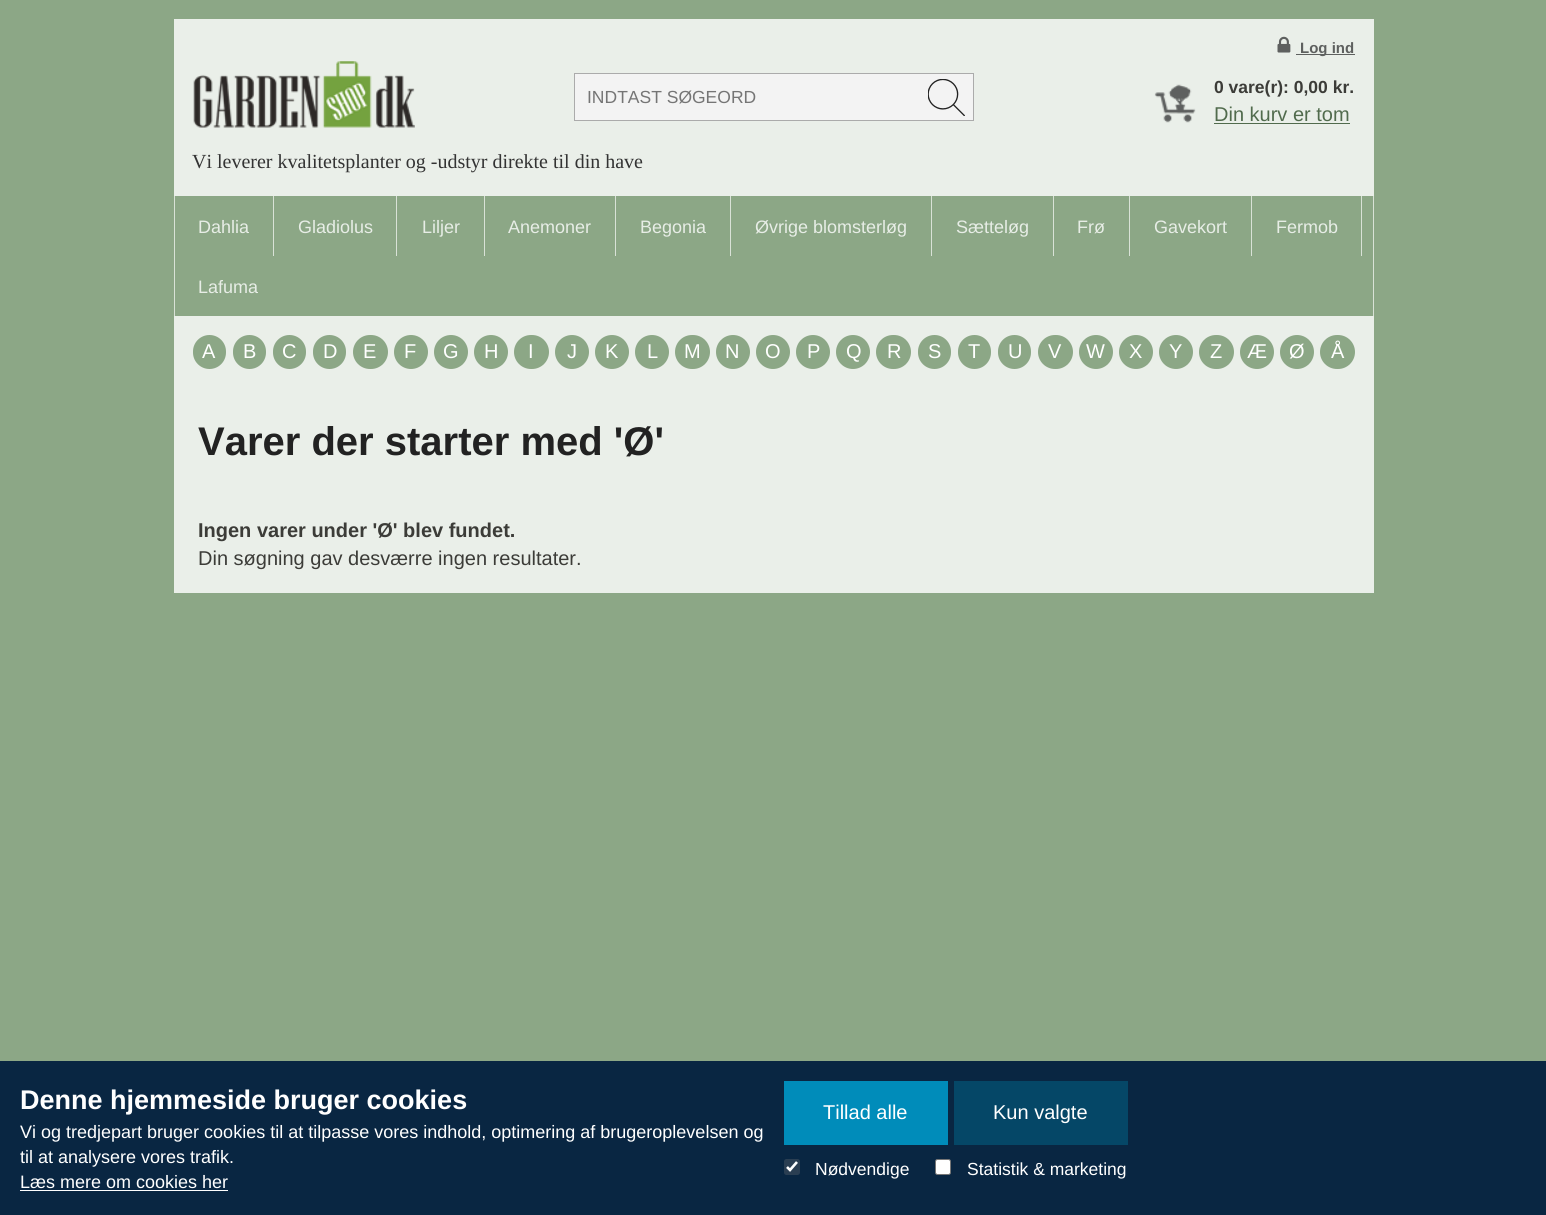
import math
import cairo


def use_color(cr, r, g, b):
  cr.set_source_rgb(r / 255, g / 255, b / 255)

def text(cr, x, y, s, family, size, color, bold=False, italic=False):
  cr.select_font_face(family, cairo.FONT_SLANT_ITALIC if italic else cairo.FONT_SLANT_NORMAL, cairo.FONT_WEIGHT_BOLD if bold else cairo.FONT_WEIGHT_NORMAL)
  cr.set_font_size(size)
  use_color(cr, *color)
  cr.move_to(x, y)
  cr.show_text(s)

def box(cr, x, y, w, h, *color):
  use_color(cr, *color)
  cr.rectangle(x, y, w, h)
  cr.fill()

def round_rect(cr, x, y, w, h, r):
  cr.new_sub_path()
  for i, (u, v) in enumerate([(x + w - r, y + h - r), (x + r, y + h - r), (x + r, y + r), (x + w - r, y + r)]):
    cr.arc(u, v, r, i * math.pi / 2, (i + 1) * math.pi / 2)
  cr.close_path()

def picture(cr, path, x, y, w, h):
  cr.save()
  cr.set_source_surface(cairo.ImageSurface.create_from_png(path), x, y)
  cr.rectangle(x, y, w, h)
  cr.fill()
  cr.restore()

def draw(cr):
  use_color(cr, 140, 167, 134)
  cr.paint()
  box(cr, 174, 19, 1200, 574, 234, 239, 233)
  picture(cr, "img_01.png", 1277, 36, 14, 17)
  box(cr, 1296, 54, 59, 1, 94, 96, 95)
  picture(cr, "img_02.png", 193, 61, 222, 67)
  cr.rectangle(574.5, 73.5, 399, 47)
  use_color(cr, 171, 171, 171)
  cr.set_line_width(1)
  cr.stroke()
  box(cr, 575, 74, 398, 46, 243, 243, 243)
  picture(cr, "img_03.png", 928, 79, 37, 37)
  picture(cr, "img_04.png", 1154, 84, 42, 39)
  box(cr, 1214, 123, 136, 1, 81, 107, 77)
  box(cr, 175, 196, 1198, 120, 140, 167, 134)
  box(cr, 1373, 196, 1, 120, 217, 226, 215)
  box(cr, 174, 196, 1, 120, 217, 226, 215)
  box(cr, 273, 196, 1, 60, 217, 226, 215)
  box(cr, 396, 196, 1, 60, 217, 226, 215)
  box(cr, 484, 196, 1, 60, 217, 226, 215)
  box(cr, 615, 196, 1, 60, 217, 226, 215)
  box(cr, 730, 196, 1, 60, 217, 226, 215)
  box(cr, 931, 196, 1, 60, 217, 226, 215)
  box(cr, 1053, 196, 1, 60, 217, 226, 215)
  box(cr, 1129, 196, 1, 60, 217, 226, 215)
  box(cr, 1251, 196, 1, 60, 217, 226, 215)
  box(cr, 1361, 196, 1, 60, 217, 226, 215)
  use_color(cr, 140, 167, 134)
  round_rect(cr, 193, 335, 33, 34, 16.5)
  cr.fill()
  round_rect(cr, 233, 335, 33, 34, 16.5)
  cr.fill()
  round_rect(cr, 273, 335, 33, 34, 16.5)
  cr.fill()
  round_rect(cr, 313, 335, 33, 34, 16.5)
  cr.fill()
  round_rect(cr, 353, 335, 35, 34, 17)
  cr.fill()
  cr.arc(411, 352, 17, 0, 2 * math.pi)
  cr.fill()
  cr.arc(451, 352, 17, 0, 2 * math.pi)
  cr.fill()
  cr.arc(491, 352, 17, 0, 2 * math.pi)
  cr.fill()
  round_rect(cr, 514, 335, 35, 34, 17)
  cr.fill()
  cr.arc(572, 352, 17, 0, 2 * math.pi)
  cr.fill()
  cr.arc(612, 352, 17, 0, 2 * math.pi)
  cr.fill()
  cr.arc(652, 352, 17, 0, 2 * math.pi)
  cr.fill()
  round_rect(cr, 675, 335, 35, 34, 17)
  cr.fill()
  cr.arc(733, 352, 17, 0, 2 * math.pi)
  cr.fill()
  cr.arc(773, 352, 17, 0, 2 * math.pi)
  cr.fill()
  cr.arc(813, 352, 17, 0, 2 * math.pi)
  cr.fill()
  cr.arc(853, 352, 17, 0, 2 * math.pi)
  cr.fill()
  round_rect(cr, 876, 335, 35, 34, 17)
  cr.fill()
  round_rect(cr, 918, 335, 33, 34, 16.5)
  cr.fill()
  round_rect(cr, 958, 335, 33, 34, 16.5)
  cr.fill()
  round_rect(cr, 998, 335, 33, 34, 16.5)
  cr.fill()
  round_rect(cr, 1038, 335, 35, 34, 17)
  cr.fill()
  cr.arc(1096, 352, 17, 0, 2 * math.pi)
  cr.fill()
  cr.arc(1136, 352, 17, 0, 2 * math.pi)
  cr.fill()
  cr.arc(1176, 352, 17, 0, 2 * math.pi)
  cr.fill()
  round_rect(cr, 1199, 335, 35, 34, 17)
  cr.fill()
  cr.arc(1257, 352, 17, 0, 2 * math.pi)
  cr.fill()
  cr.arc(1297, 352, 17, 0, 2 * math.pi)
  cr.fill()
  round_rect(cr, 1320, 335, 35, 34, 17)
  cr.fill()
  box(cr, 0, 1061, 1546, 154, 9, 38, 66)
  box(cr, 20, 1190, 208, 1, 255, 255, 255)
  box(cr, 784, 1081, 164, 64, 0, 140, 186)
  box(cr, 954, 1081, 174, 64, 5, 71, 103)
  use_color(cr, 42, 62, 82)
  round_rect(cr, 784, 1159, 16, 16, 2.5)
  cr.fill()
  cr.new_path()
  cr.move_to(787, 1167)
  cr.line_to(790, 1170)
  cr.line_to(797, 1162)
  use_color(cr, 255, 255, 255)
  cr.set_line_width(2.6)
  cr.stroke()
  round_rect(cr, 935.5, 1159.5, 15, 15, 2)
  cr.fill_preserve()
  use_color(cr, 118, 118, 118)
  cr.set_line_width(1)
  cr.stroke()
  text(cr, 1300, 53, "Log ind", "Liberation Sans", 15, (94, 96, 95), bold=True)
  text(cr, 587, 103, "INDTAST SØGEORD", "Liberation Sans", 17.5, (117, 117, 117))
  text(cr, 1214, 93, "0 vare(r): 0,00 kr.", "Liberation Sans", 17.5, (60, 60, 56), bold=True)
  text(cr, 1214, 121, "Din kurv er tom", "Liberation Sans", 20, (81, 107, 77))
  text(cr, 192, 168, "Vi leverer kvalitetsplanter og -udstyr direkte til din have", "Liberation Serif", 20, (51, 51, 51))
  text(cr, 198, 233, "Dahlia", "Liberation Sans", 18, (231, 237, 230))
  text(cr, 298, 233, "Gladiolus", "Liberation Sans", 18, (231, 237, 230))
  text(cr, 422, 233, "Liljer", "Liberation Sans", 18, (231, 237, 230))
  text(cr, 508, 233, "Anemoner", "Liberation Sans", 18, (231, 237, 230))
  text(cr, 640, 233, "Begonia", "Liberation Sans", 18, (231, 237, 230))
  text(cr, 755, 233, "Øvrige blomsterløg", "Liberation Sans", 18, (231, 237, 230))
  text(cr, 956, 233, "Sætteløg", "Liberation Sans", 18, (231, 237, 230))
  text(cr, 1077, 233, "Frø", "Liberation Sans", 18, (231, 237, 230))
  text(cr, 1154, 233, "Gavekort", "Liberation Sans", 18, (231, 237, 230))
  text(cr, 1276, 233, "Fermob", "Liberation Sans", 18, (231, 237, 230))
  text(cr, 198, 293, "Lafuma", "Liberation Sans", 18, (231, 237, 230))
  text(cr, 202, 358, "A", "Liberation Sans", 20, (255, 255, 255))
  text(cr, 243, 358, "B", "Liberation Sans", 20, (255, 255, 255))
  text(cr, 282, 358, "C", "Liberation Sans", 20, (255, 255, 255))
  text(cr, 323, 358, "D", "Liberation Sans", 20, (255, 255, 255))
  text(cr, 363, 358, "E", "Liberation Sans", 20, (255, 255, 255))
  text(cr, 404, 358, "F", "Liberation Sans", 20, (255, 255, 255))
  text(cr, 443, 358, "G", "Liberation Sans", 20, (255, 255, 255))
  text(cr, 484, 358, "H", "Liberation Sans", 20, (255, 255, 255))
  text(cr, 528, 358, "I", "Liberation Sans", 20, (255, 255, 255))
  text(cr, 567, 358, "J", "Liberation Sans", 20, (255, 255, 255))
  text(cr, 605, 358, "K", "Liberation Sans", 20, (255, 255, 255))
  text(cr, 647, 358, "L", "Liberation Sans", 20, (255, 255, 255))
  text(cr, 684, 358, "M", "Liberation Sans", 20, (255, 255, 255))
  text(cr, 725, 358, "N", "Liberation Sans", 20, (255, 255, 255))
  text(cr, 765, 358, "O", "Liberation Sans", 20, (255, 255, 255))
  text(cr, 807, 358, "P", "Liberation Sans", 20, (255, 255, 255))
  text(cr, 846, 358, "Q", "Liberation Sans", 20, (255, 255, 255))
  text(cr, 887, 358, "R", "Liberation Sans", 20, (255, 255, 255))
  text(cr, 928, 358, "S", "Liberation Sans", 20, (255, 255, 255))
  text(cr, 968, 358, "T", "Liberation Sans", 20, (255, 255, 255))
  text(cr, 1008, 358, "U", "Liberation Sans", 20, (255, 255, 255))
  text(cr, 1048, 358, "V", "Liberation Sans", 20, (255, 255, 255))
  text(cr, 1086, 358, "W", "Liberation Sans", 20, (255, 255, 255))
  text(cr, 1129, 358, "X", "Liberation Sans", 20, (255, 255, 255))
  text(cr, 1169, 358, "Y", "Liberation Sans", 20, (255, 255, 255))
  text(cr, 1210, 358, "Z", "Liberation Sans", 20, (255, 255, 255))
  text(cr, 1247, 358, "Æ", "Liberation Sans", 20, (255, 255, 255))
  text(cr, 1289, 358, "Ø", "Liberation Sans", 20, (255, 255, 255))
  text(cr, 1331, 358, "Å", "Liberation Sans", 20, (255, 255, 255))
  text(cr, 198, 455, "Varer der starter med 'Ø'", "Liberation Sans", 40, (34, 34, 34), bold=True)
  text(cr, 198, 537, "Ingen varer under 'Ø' blev fundet.", "Liberation Sans", 20, (60, 60, 56), bold=True)
  text(cr, 198, 565, "Din søgning gav desværre ingen resultater.", "Liberation Sans", 20, (60, 60, 56))
  text(cr, 20, 1109, "Denne hjemmeside bruger cookies", "Liberation Sans", 27, (255, 255, 255), bold=True)
  text(cr, 20, 1138, "Vi og tredjepart bruger cookies til at tilpasse vores indhold, optimering af brugeroplevelsen og", "Liberation Sans", 18, (255, 255, 255))
  text(cr, 20, 1163, "til at analysere vores trafik.", "Liberation Sans", 18, (255, 255, 255))
  text(cr, 20, 1188, "Læs mere om cookies her", "Liberation Sans", 18, (255, 255, 255))
  text(cr, 823, 1119, "Tillad alle", "Liberation Sans", 20, (255, 255, 255))
  text(cr, 993, 1119, "Kun valgte", "Liberation Sans", 20, (255, 255, 255))
  text(cr, 815, 1175, "Nødvendige", "Liberation Sans", 17.5, (255, 255, 255))
  text(cr, 967, 1175, "Statistik & marketing", "Liberation Sans", 17.5, (255, 255, 255))


surface = cairo.ImageSurface(cairo.FORMAT_RGB24, 1546, 1215)
cr = cairo.Context(surface)
options = cairo.FontOptions()
options.set_hint_metrics(cairo.HINT_METRICS_OFF)
options.set_hint_style(cairo.HINT_STYLE_NONE)
cr.set_font_options(options)
cr.set_miter_limit(4)
draw(cr)
surface.write_to_png("out.png")
